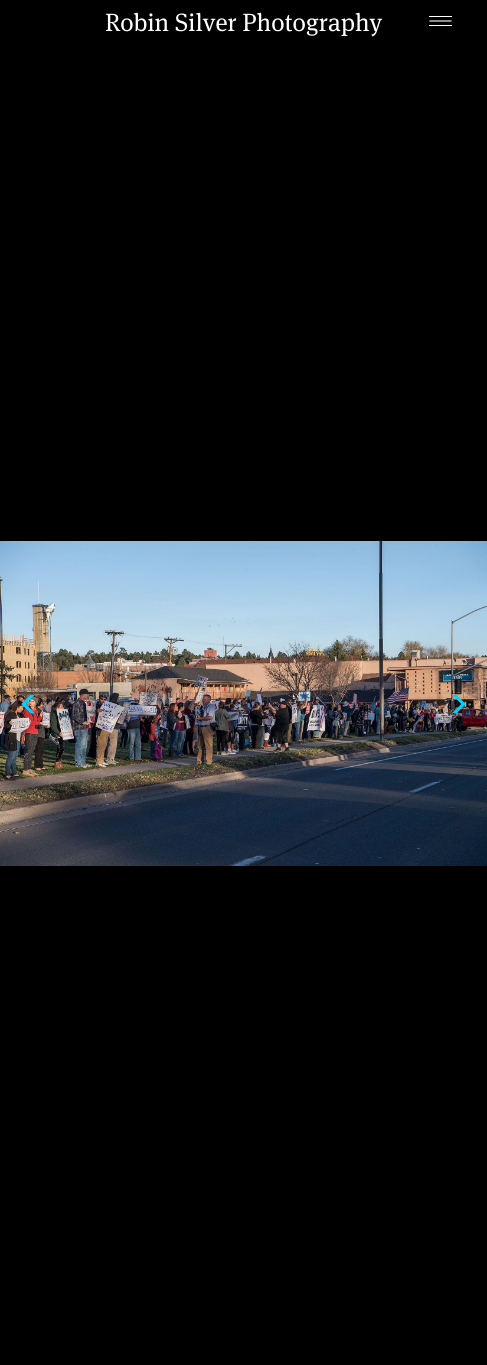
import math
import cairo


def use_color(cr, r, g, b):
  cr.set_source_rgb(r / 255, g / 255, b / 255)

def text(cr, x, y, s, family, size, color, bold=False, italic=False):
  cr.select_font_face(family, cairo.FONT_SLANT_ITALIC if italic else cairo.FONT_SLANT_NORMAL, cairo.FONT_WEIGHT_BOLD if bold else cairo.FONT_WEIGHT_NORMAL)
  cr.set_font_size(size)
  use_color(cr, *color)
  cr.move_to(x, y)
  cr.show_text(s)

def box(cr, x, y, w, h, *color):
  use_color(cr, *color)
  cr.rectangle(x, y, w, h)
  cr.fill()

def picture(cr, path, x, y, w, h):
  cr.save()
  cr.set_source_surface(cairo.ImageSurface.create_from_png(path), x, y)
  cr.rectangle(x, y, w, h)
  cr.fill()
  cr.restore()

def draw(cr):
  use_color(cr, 0, 0, 0)
  cr.paint()
  box(cr, 429, 16, 23, 1, 255, 255, 255)
  cr.new_path()
  cr.move_to(430, 21)
  cr.line_to(451, 21)
  cr.set_line_width(1.1)
  cr.set_line_cap(cairo.LINE_CAP_SQUARE)
  cr.stroke()
  box(cr, 429, 25, 23, 1, 255, 255, 255)
  picture(cr, "img_01.png", 0, 541, 487, 325)
  picture(cr, "img_02.png", 21, 695, 14, 18)
  picture(cr, "img_03.png", 452, 695, 14, 18)
  text(cr, 105, 31, "Robin Silver Photography", "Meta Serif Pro", 25, (255, 255, 255))


surface = cairo.ImageSurface(cairo.FORMAT_RGB24, 487, 1365)
cr = cairo.Context(surface)
options = cairo.FontOptions()
options.set_hint_metrics(cairo.HINT_METRICS_OFF)
options.set_hint_style(cairo.HINT_STYLE_NONE)
cr.set_font_options(options)
cr.set_miter_limit(4)
draw(cr)
surface.write_to_png("out.png")
